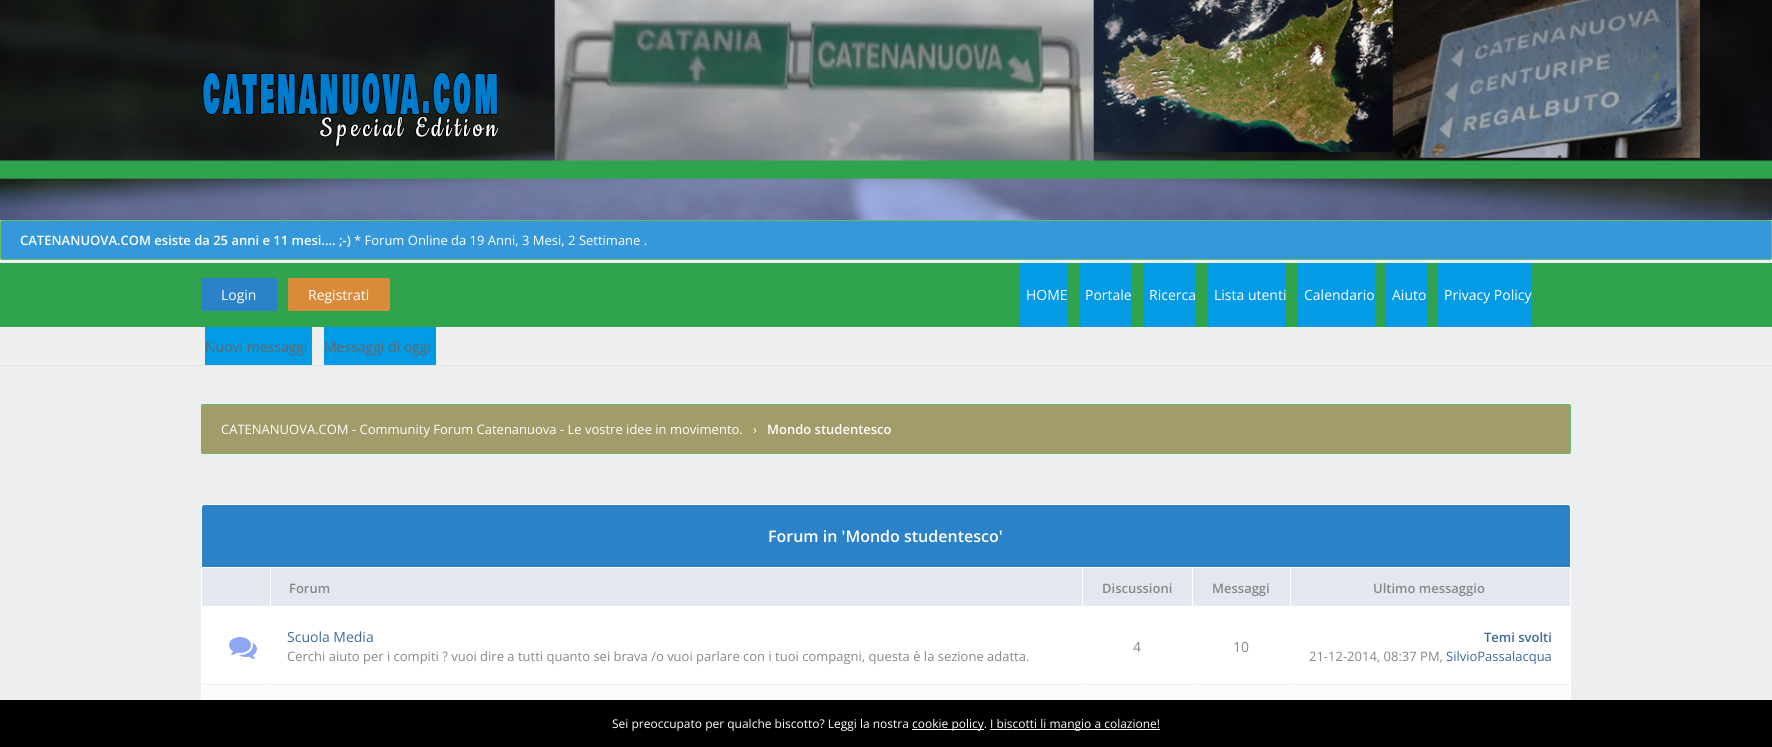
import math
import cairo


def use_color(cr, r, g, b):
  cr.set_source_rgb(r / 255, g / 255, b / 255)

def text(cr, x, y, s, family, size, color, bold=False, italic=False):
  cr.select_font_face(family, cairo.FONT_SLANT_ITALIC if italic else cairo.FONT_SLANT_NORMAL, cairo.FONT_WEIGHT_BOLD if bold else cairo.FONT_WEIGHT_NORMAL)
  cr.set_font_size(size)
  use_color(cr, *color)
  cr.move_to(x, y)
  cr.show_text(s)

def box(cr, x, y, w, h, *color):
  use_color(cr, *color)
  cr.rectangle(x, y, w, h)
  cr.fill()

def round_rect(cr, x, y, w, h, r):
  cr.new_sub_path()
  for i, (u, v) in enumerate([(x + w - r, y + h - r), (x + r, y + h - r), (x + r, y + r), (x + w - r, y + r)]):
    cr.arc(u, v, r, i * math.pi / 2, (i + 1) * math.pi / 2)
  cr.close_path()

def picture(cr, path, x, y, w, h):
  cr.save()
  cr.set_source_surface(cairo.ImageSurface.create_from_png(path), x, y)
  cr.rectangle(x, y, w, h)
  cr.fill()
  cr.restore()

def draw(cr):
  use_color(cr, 236, 238, 240)
  cr.paint()
  picture(cr, "img_01.png", 0, 0, 1772, 220)
  picture(cr, "img_02.png", 202, 72, 298, 75)
  use_color(cr, 52, 152, 219)
  round_rect(cr, 0.5, 220.5, 1771, 39, 1.5)
  cr.fill_preserve()
  use_color(cr, 102, 187, 106)
  cr.set_line_width(1)
  cr.stroke()
  box(cr, 0, 263, 1772, 64, 47, 164, 77)
  use_color(cr, 44, 130, 201)
  round_rect(cr, 201, 278, 76, 33, 2)
  cr.fill()
  use_color(cr, 217, 139, 58)
  round_rect(cr, 288, 278, 102, 33, 2)
  cr.fill()
  box(cr, 1020, 263, 47, 64, 3, 155, 229)
  box(cr, 1079, 263, 53, 64, 3, 155, 229)
  box(cr, 1143, 263, 53, 64, 3, 155, 229)
  box(cr, 1208, 263, 78, 64, 3, 155, 229)
  box(cr, 1298, 263, 77, 64, 3, 155, 229)
  box(cr, 1386, 263, 41, 64, 3, 155, 229)
  box(cr, 1438, 263, 94, 64, 3, 155, 229)
  box(cr, 0, 327, 1772, 38, 239, 239, 239)
  box(cr, 0, 365, 1772, 1, 227, 227, 227)
  box(cr, 205, 327, 107, 38, 3, 155, 229)
  box(cr, 324, 327, 112, 38, 3, 155, 229)
  use_color(cr, 161, 156, 105)
  round_rect(cr, 201.5, 404.5, 1369, 49, 1.5)
  cr.fill_preserve()
  use_color(cr, 102, 187, 106)
  cr.stroke()
  use_color(cr, 255, 255, 255)
  round_rect(cr, 201, 504, 1370, 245, 2)
  cr.fill()
  use_color(cr, 44, 130, 201)
  cr.new_path()
  cr.move_to(204, 505)
  cr.line_to(1568, 505)
  cr.curve_to(1569, 505, 1570, 506, 1570, 507)
  cr.line_to(1570, 567)
  cr.line_to(202, 567)
  cr.line_to(202, 507)
  cr.curve_to(202, 506, 203, 505, 204, 505)
  cr.close_path()
  cr.fill()
  box(cr, 202, 568, 68, 38, 227, 232, 240)
  box(cr, 271, 568, 811, 38, 227, 232, 240)
  box(cr, 1083, 568, 109, 38, 227, 232, 240)
  box(cr, 1193, 568, 97, 38, 227, 232, 240)
  box(cr, 1291, 568, 279, 38, 227, 232, 240)
  box(cr, 202, 684, 68, 1, 240, 240, 240)
  picture(cr, "img_03.png", 229, 637, 28, 22)
  box(cr, 271, 684, 811, 1, 240, 240, 240)
  box(cr, 1083, 684, 109, 1, 240, 240, 240)
  box(cr, 1193, 684, 97, 1, 240, 240, 240)
  box(cr, 1291, 684, 279, 1, 240, 240, 240)
  box(cr, 202, 686, 68, 14, 250, 251, 252)
  box(cr, 271, 686, 811, 14, 250, 251, 252)
  box(cr, 1083, 686, 109, 14, 250, 251, 252)
  box(cr, 1193, 686, 97, 14, 250, 251, 252)
  box(cr, 1291, 686, 279, 14, 250, 251, 252)
  box(cr, 0, 700, 1772, 47, 0, 0, 0)
  box(cr, 912, 729, 72, 1, 255, 255, 255)
  box(cr, 990, 729, 170, 1, 255, 255, 255)
  text(cr, 20, 245, "CATENANUOVA.COM esiste da 25 anni e 11 mesi.... ;-)", "Open Sans SemiBold", 13, (255, 255, 255))
  text(cr, 354, 245, "* Forum Online da 19 Anni, 3 Mesi, 2 Settimane .", "Open Sans", 13, (255, 255, 255))
  text(cr, 221, 300, "Login", "Open Sans", 14, (255, 255, 255))
  text(cr, 308, 300, "Registrati", "Open Sans", 14, (255, 255, 255))
  text(cr, 1026, 300, "HOME", "Open Sans", 14, (255, 255, 255))
  text(cr, 1085, 300, "Portale", "Open Sans", 14, (255, 255, 255))
  text(cr, 1149, 300, "Ricerca", "Open Sans", 14, (255, 255, 255))
  text(cr, 1214, 300, "Lista utenti", "Open Sans", 14, (255, 255, 255))
  text(cr, 1304, 300, "Calendario", "Open Sans", 14, (255, 255, 255))
  text(cr, 1392, 300, "Aiuto", "Open Sans", 14, (255, 255, 255))
  text(cr, 1444, 300, "Privacy Policy", "Open Sans", 14, (255, 255, 255))
  text(cr, 205, 352, "Nuovi messaggi", "Open Sans", 14, (102, 102, 102))
  text(cr, 324, 352, "Messaggi di oggi", "Open Sans", 14, (102, 102, 102))
  text(cr, 221, 434, "CATENANUOVA.COM - Community Forum Catenanuova - Le vostre idee in movimento.", "Open Sans", 13, (255, 255, 255))
  text(cr, 753, 434, "›", "Open Sans", 13, (255, 255, 255))
  text(cr, 767, 434, "Mondo studentesco", "Open Sans SemiBold", 13, (255, 255, 255))
  text(cr, 768, 542, "Forum in 'Mondo studentesco'", "Open Sans SemiBold", 16, (255, 255, 255))
  text(cr, 289, 593, "Forum", "Open Sans SemiBold", 13, (136, 136, 136))
  text(cr, 1102, 593, "Discussioni", "Open Sans SemiBold", 13, (136, 136, 136))
  text(cr, 1212, 593, "Messaggi", "Open Sans SemiBold", 13, (136, 136, 136))
  text(cr, 1373, 593, "Ultimo messaggio", "Open Sans SemiBold", 13, (136, 136, 136))
  text(cr, 287, 642, "Scuola Media", "Open Sans", 14, (60, 105, 156))
  text(cr, 287, 661, "Cerchi aiuto per i compiti ? vuoi dire a tutti quanto sei brava /o vuoi parlare con i tuoi compagni, questa è la sezione adatta.", "Open Sans", 13, (136, 136, 136))
  text(cr, 1133, 652, "4", "Open Sans", 14, (136, 136, 136))
  text(cr, 1233, 652, "10", "Open Sans", 14, (136, 136, 136))
  text(cr, 1484, 642, "Temi svolti", "Open Sans SemiBold", 13, (60, 105, 156))
  text(cr, 1309, 661, "21-12-2014, 08:37 PM,", "Open Sans", 13, (136, 136, 136))
  text(cr, 1446, 661, "SilvioPassalacqua", "Open Sans", 13, (60, 105, 156))
  text(cr, 612, 728, "Sei preoccupato per qualche biscotto? Leggi la nostra", "Open Sans", 12, (255, 255, 255))
  text(cr, 912, 728, "cookie policy.", "Open Sans", 12, (255, 255, 255))
  text(cr, 990, 728, "I biscotti li mangio a colazione!", "Open Sans", 12, (255, 255, 255))


surface = cairo.ImageSurface(cairo.FORMAT_RGB24, 1772, 747)
cr = cairo.Context(surface)
options = cairo.FontOptions()
options.set_hint_metrics(cairo.HINT_METRICS_OFF)
options.set_hint_style(cairo.HINT_STYLE_NONE)
cr.set_font_options(options)
cr.set_miter_limit(4)
draw(cr)
surface.write_to_png("out.png")
